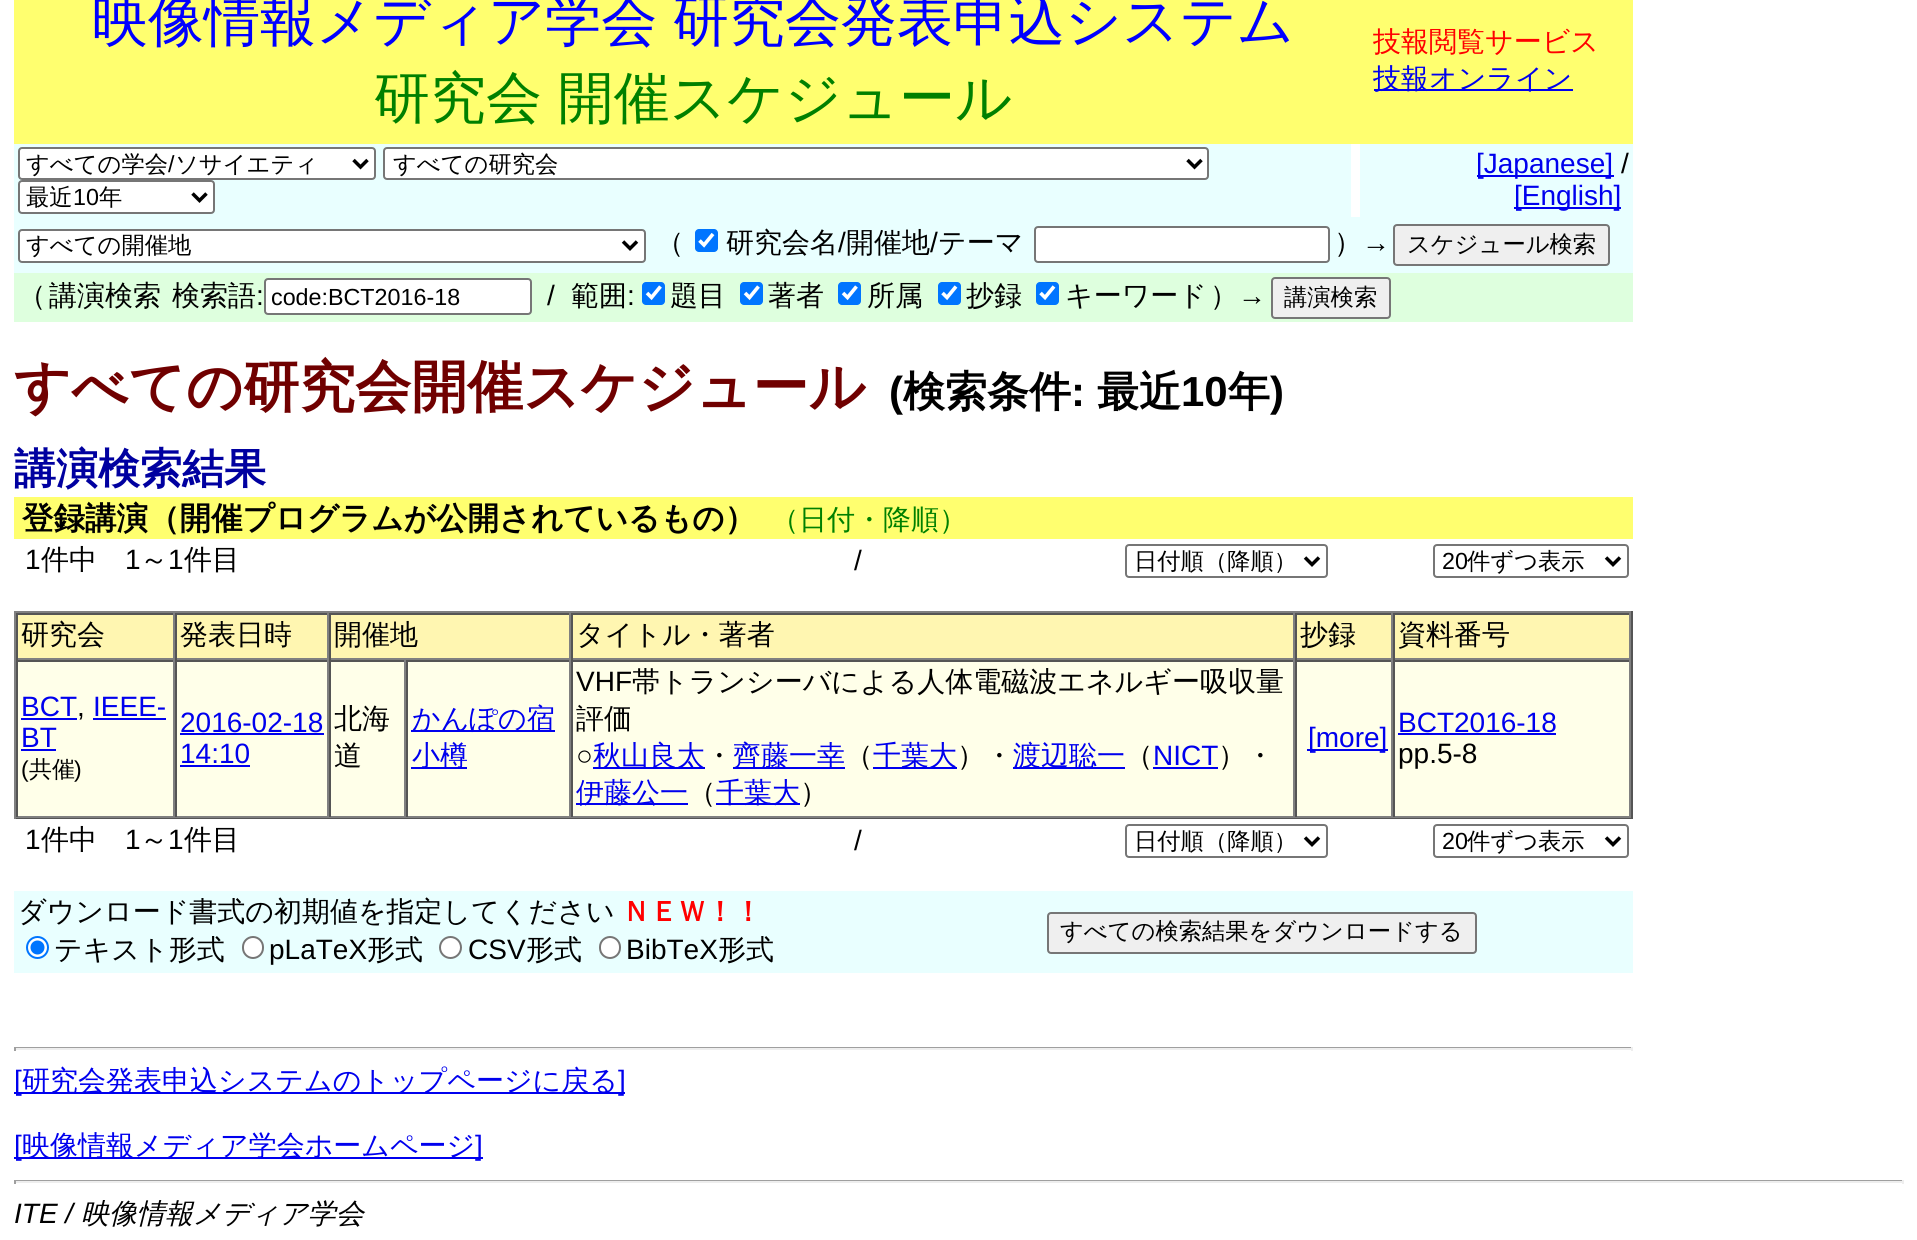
import math
import cairo


def use_color(cr, r, g, b):
  cr.set_source_rgb(r / 255, g / 255, b / 255)

def text(cr, x, y, s, family, size, color, bold=False, italic=False):
  cr.select_font_face(family, cairo.FONT_SLANT_ITALIC if italic else cairo.FONT_SLANT_NORMAL, cairo.FONT_WEIGHT_BOLD if bold else cairo.FONT_WEIGHT_NORMAL)
  cr.set_font_size(size)
  use_color(cr, *color)
  cr.move_to(x, y)
  cr.show_text(s)

def spaced_text(cr, x, y, s, letter, word):
  cr.move_to(x, y)
  for ch in s:
    cr.show_text(ch)
    cr.rel_move_to(letter + word * (ch == ' '), 0)

def box(cr, x, y, w, h, *color):
  use_color(cr, *color)
  cr.rectangle(x, y, w, h)
  cr.fill()

def round_rect(cr, x, y, w, h, r):
  cr.new_sub_path()
  for i, (u, v) in enumerate([(x + w - r, y + h - r), (x + r, y + h - r), (x + r, y + r), (x + w - r, y + r)]):
    cr.arc(u, v, r, i * math.pi / 2, (i + 1) * math.pi / 2)
  cr.close_path()

def draw(cr):
  use_color(cr, 255, 255, 255)
  cr.paint()
  box(cr, 14, 0, 1619, 144, 255, 255, 111)
  box(cr, 1374, 89, 199, 2, 0, 0, 238)
  box(cr, 14, 144, 1337, 73, 233, 255, 255)
  use_color(cr, 255, 255, 255)
  round_rect(cr, 19, 148, 356, 31, 3)
  cr.fill_preserve()
  use_color(cr, 118, 118, 118)
  cr.stroke()
  cr.new_path()
  cr.move_to(353.5, 160)
  cr.line_to(360.5, 167)
  cr.line_to(367.5, 160)
  use_color(cr, 0, 0, 0)
  cr.set_line_width(3.5)
  cr.stroke()
  use_color(cr, 255, 255, 255)
  round_rect(cr, 384, 148, 824, 31, 3)
  cr.fill_preserve()
  use_color(cr, 118, 118, 118)
  cr.set_line_width(2)
  cr.stroke()
  cr.new_path()
  cr.move_to(1187.5, 160)
  cr.line_to(1194.5, 167)
  cr.line_to(1201.5, 160)
  use_color(cr, 0, 0, 0)
  cr.set_line_width(3.5)
  cr.stroke()
  use_color(cr, 255, 255, 255)
  round_rect(cr, 19, 181, 195, 32, 3)
  cr.fill_preserve()
  use_color(cr, 118, 118, 118)
  cr.set_line_width(2)
  cr.stroke()
  cr.new_path()
  cr.move_to(192.5, 193.5)
  cr.line_to(199.5, 200.5)
  cr.line_to(206.5, 193.5)
  use_color(cr, 0, 0, 0)
  cr.set_line_width(3.5)
  cr.stroke()
  box(cr, 1360, 144, 273, 73, 233, 255, 255)
  box(cr, 1477, 175, 137, 2, 0, 0, 238)
  box(cr, 1514, 207, 107, 2, 0, 0, 238)
  box(cr, 14, 217, 1619, 56, 233, 255, 255)
  use_color(cr, 255, 255, 255)
  round_rect(cr, 19, 230, 626, 32, 3)
  cr.fill_preserve()
  use_color(cr, 118, 118, 118)
  cr.set_line_width(2)
  cr.stroke()
  cr.new_path()
  cr.move_to(623, 241.5)
  cr.line_to(630, 248.5)
  cr.line_to(637, 241.5)
  use_color(cr, 0, 0, 0)
  cr.set_line_width(3.5)
  cr.stroke()
  use_color(cr, 0, 117, 255)
  round_rect(cr, 695, 229, 23, 23, 4)
  cr.fill()
  cr.new_path()
  cr.move_to(699.5, 240.5)
  cr.line_to(704, 245)
  cr.line_to(713, 234)
  use_color(cr, 255, 255, 255)
  cr.set_line_width(3.6)
  cr.stroke()
  round_rect(cr, 1035, 227, 294, 35, 3)
  cr.fill_preserve()
  use_color(cr, 118, 118, 118)
  cr.set_line_width(2)
  cr.stroke()
  use_color(cr, 239, 239, 239)
  round_rect(cr, 1394, 225, 215, 40, 3)
  cr.fill_preserve()
  use_color(cr, 118, 118, 118)
  cr.stroke()
  box(cr, 14, 273, 1619, 49, 222, 255, 222)
  use_color(cr, 255, 255, 255)
  round_rect(cr, 265, 279, 266, 35, 3)
  cr.fill_preserve()
  use_color(cr, 118, 118, 118)
  cr.stroke()
  use_color(cr, 0, 117, 255)
  round_rect(cr, 642, 282, 23, 23, 4)
  cr.fill()
  cr.new_path()
  cr.move_to(647, 293)
  cr.line_to(651.5, 297.5)
  cr.line_to(660.5, 286.5)
  use_color(cr, 255, 255, 255)
  cr.set_line_width(3.6)
  cr.stroke()
  use_color(cr, 0, 117, 255)
  round_rect(cr, 740, 282, 23, 23, 4)
  cr.fill()
  cr.new_path()
  cr.move_to(745, 293)
  cr.line_to(749.5, 297.5)
  cr.line_to(758.5, 286.5)
  use_color(cr, 255, 255, 255)
  cr.stroke()
  use_color(cr, 0, 117, 255)
  round_rect(cr, 838, 282, 23, 23, 4)
  cr.fill()
  cr.new_path()
  cr.move_to(843, 293)
  cr.line_to(847.5, 297.5)
  cr.line_to(856.5, 286.5)
  use_color(cr, 255, 255, 255)
  cr.stroke()
  use_color(cr, 0, 117, 255)
  round_rect(cr, 938, 282, 23, 23, 4)
  cr.fill()
  cr.new_path()
  cr.move_to(942.5, 293)
  cr.line_to(947, 297.5)
  cr.line_to(956, 286.5)
  use_color(cr, 255, 255, 255)
  cr.stroke()
  use_color(cr, 0, 117, 255)
  round_rect(cr, 1036, 282, 23, 23, 4)
  cr.fill()
  cr.new_path()
  cr.move_to(1040.5, 293)
  cr.line_to(1045, 297.5)
  cr.line_to(1054, 286.5)
  use_color(cr, 255, 255, 255)
  cr.stroke()
  use_color(cr, 239, 239, 239)
  round_rect(cr, 1272, 278, 118, 40, 3)
  cr.fill_preserve()
  use_color(cr, 118, 118, 118)
  cr.set_line_width(2)
  cr.stroke()
  box(cr, 14, 497, 1619, 42, 255, 255, 111)
  round_rect(cr, 1126, 545, 201, 32, 3)
  use_color(cr, 118, 118, 118)
  cr.stroke()
  cr.new_path()
  cr.move_to(1305, 557.5)
  cr.line_to(1312, 564.5)
  cr.line_to(1319, 557.5)
  use_color(cr, 0, 0, 0)
  cr.set_line_width(3.5)
  cr.stroke()
  round_rect(cr, 1434, 545, 194, 32, 3)
  use_color(cr, 118, 118, 118)
  cr.set_line_width(2)
  cr.stroke()
  cr.new_path()
  cr.move_to(1606, 557.5)
  cr.line_to(1613, 564.5)
  cr.line_to(1620, 557.5)
  use_color(cr, 0, 0, 0)
  cr.set_line_width(3.5)
  cr.stroke()
  box(cr, 14, 611, 1619, 2, 128, 128, 128)
  box(cr, 1631, 611, 2, 208, 85, 85, 85)
  box(cr, 14, 817, 1619, 2, 85, 85, 85)
  box(cr, 14, 611, 2, 208, 128, 128, 128)
  box(cr, 18, 615, 155, 43, 255, 246, 177)
  box(cr, 16, 613, 1615, 2, 85, 85, 85)
  box(cr, 173, 613, 2, 47, 128, 128, 128)
  box(cr, 16, 658, 159, 2, 128, 128, 128)
  box(cr, 16, 613, 2, 47, 85, 85, 85)
  box(cr, 177, 615, 150, 43, 255, 246, 177)
  box(cr, 327, 613, 2, 47, 128, 128, 128)
  box(cr, 175, 658, 154, 2, 128, 128, 128)
  box(cr, 175, 613, 2, 47, 85, 85, 85)
  box(cr, 331, 615, 238, 43, 255, 246, 177)
  box(cr, 569, 613, 2, 47, 128, 128, 128)
  box(cr, 329, 658, 242, 2, 128, 128, 128)
  box(cr, 329, 613, 2, 47, 85, 85, 85)
  box(cr, 573, 615, 720, 43, 255, 246, 177)
  box(cr, 1293, 613, 2, 47, 128, 128, 128)
  box(cr, 571, 658, 724, 2, 128, 128, 128)
  box(cr, 571, 613, 2, 47, 85, 85, 85)
  box(cr, 1297, 615, 94, 43, 255, 246, 177)
  box(cr, 1391, 613, 2, 47, 128, 128, 128)
  box(cr, 1295, 658, 98, 2, 128, 128, 128)
  box(cr, 1295, 613, 2, 47, 85, 85, 85)
  box(cr, 1395, 615, 234, 43, 255, 246, 177)
  box(cr, 1629, 613, 2, 47, 128, 128, 128)
  box(cr, 1393, 658, 238, 2, 128, 128, 128)
  box(cr, 1393, 613, 2, 47, 85, 85, 85)
  box(cr, 18, 662, 155, 154, 255, 255, 233)
  box(cr, 16, 660, 1615, 2, 85, 85, 85)
  box(cr, 173, 660, 2, 157, 128, 128, 128)
  box(cr, 16, 816, 159, 2, 128, 128, 128)
  box(cr, 16, 660, 2, 157, 85, 85, 85)
  box(cr, 21, 718, 56, 2, 0, 0, 238)
  box(cr, 93, 718, 73, 2, 0, 0, 238)
  box(cr, 21, 749, 35, 2, 0, 0, 238)
  box(cr, 177, 662, 150, 154, 255, 255, 233)
  box(cr, 327, 660, 2, 157, 128, 128, 128)
  box(cr, 175, 816, 154, 2, 128, 128, 128)
  box(cr, 175, 660, 2, 157, 85, 85, 85)
  box(cr, 180, 733, 144, 2, 0, 0, 238)
  box(cr, 180, 765, 70, 2, 0, 0, 238)
  box(cr, 331, 662, 73, 154, 255, 255, 233)
  box(cr, 404, 660, 2, 157, 128, 128, 128)
  box(cr, 329, 816, 77, 2, 128, 128, 128)
  box(cr, 329, 660, 2, 157, 85, 85, 85)
  box(cr, 408, 662, 161, 154, 255, 255, 233)
  box(cr, 569, 660, 2, 157, 128, 128, 128)
  box(cr, 406, 816, 165, 2, 128, 128, 128)
  box(cr, 406, 660, 2, 157, 85, 85, 85)
  box(cr, 411, 730, 144, 2, 0, 0, 238)
  box(cr, 411, 767, 56, 2, 0, 0, 238)
  box(cr, 573, 662, 720, 154, 255, 255, 233)
  box(cr, 1293, 660, 2, 157, 128, 128, 128)
  box(cr, 571, 816, 724, 2, 128, 128, 128)
  box(cr, 571, 660, 2, 157, 85, 85, 85)
  box(cr, 593, 767, 112, 2, 0, 0, 238)
  box(cr, 733, 767, 112, 2, 0, 0, 238)
  box(cr, 873, 767, 84, 2, 0, 0, 238)
  box(cr, 1013, 767, 112, 2, 0, 0, 238)
  box(cr, 1153, 767, 65, 2, 0, 0, 238)
  box(cr, 576, 803, 112, 2, 0, 0, 238)
  box(cr, 716, 803, 84, 2, 0, 0, 238)
  box(cr, 1297, 662, 94, 154, 255, 255, 233)
  box(cr, 1391, 660, 2, 157, 128, 128, 128)
  box(cr, 1295, 816, 98, 2, 128, 128, 128)
  box(cr, 1295, 660, 2, 157, 85, 85, 85)
  box(cr, 1307, 749, 81, 2, 0, 0, 238)
  box(cr, 1395, 662, 234, 154, 255, 255, 233)
  box(cr, 1629, 660, 2, 157, 128, 128, 128)
  box(cr, 1393, 816, 238, 2, 128, 128, 128)
  box(cr, 1393, 660, 2, 157, 85, 85, 85)
  box(cr, 1398, 733, 158, 2, 0, 0, 238)
  round_rect(cr, 1126, 825, 201, 32, 3)
  use_color(cr, 118, 118, 118)
  cr.set_line_width(2)
  cr.stroke()
  cr.new_path()
  cr.move_to(1305, 837.5)
  cr.line_to(1312, 844.5)
  cr.line_to(1319, 837.5)
  use_color(cr, 0, 0, 0)
  cr.set_line_width(3.5)
  cr.stroke()
  round_rect(cr, 1434, 825, 194, 32, 3)
  use_color(cr, 118, 118, 118)
  cr.set_line_width(2)
  cr.stroke()
  cr.new_path()
  cr.move_to(1606, 837.5)
  cr.line_to(1613, 844.5)
  cr.line_to(1620, 837.5)
  use_color(cr, 0, 0, 0)
  cr.set_line_width(3.5)
  cr.stroke()
  box(cr, 14, 891, 1619, 82, 233, 255, 255)
  use_color(cr, 255, 255, 255)
  cr.arc(37.5, 947.5, 10.5, 0, 2 * math.pi)
  cr.fill_preserve()
  use_color(cr, 0, 117, 255)
  cr.set_line_width(2)
  cr.stroke()
  cr.arc(37.5, 947.5, 7, 0, 2 * math.pi)
  cr.fill()
  use_color(cr, 255, 255, 255)
  round_rect(cr, 243, 937, 20, 21, 10)
  cr.fill_preserve()
  use_color(cr, 118, 118, 118)
  cr.stroke()
  use_color(cr, 255, 255, 255)
  cr.arc(450.5, 947.5, 10.5, 0, 2 * math.pi)
  cr.fill_preserve()
  use_color(cr, 118, 118, 118)
  cr.stroke()
  use_color(cr, 255, 255, 255)
  round_rect(cr, 600, 937, 20, 21, 10)
  cr.fill_preserve()
  use_color(cr, 118, 118, 118)
  cr.stroke()
  use_color(cr, 239, 239, 239)
  round_rect(cr, 1048, 913, 428, 40, 3)
  cr.fill_preserve()
  use_color(cr, 118, 118, 118)
  cr.stroke()
  box(cr, 14, 1047, 1619, 1, 159, 159, 159)
  box(cr, 1631, 1047, 2, 4, 238, 238, 238)
  box(cr, 14, 1048, 1619, 2, 238, 238, 238)
  box(cr, 14, 1047, 2, 4, 159, 159, 159)
  box(cr, 14, 1092, 611, 2, 0, 0, 238)
  box(cr, 14, 1157, 469, 2, 0, 0, 238)
  box(cr, 14, 1180, 1890, 1, 159, 159, 159)
  box(cr, 1902, 1180, 2, 4, 238, 238, 238)
  box(cr, 14, 1181, 1890, 2, 238, 238, 238)
  box(cr, 14, 1180, 2, 4, 159, 159, 159)
  cr.select_font_face("WenQuanYi Zen Hei Medium")
  cr.set_font_size(56)
  use_color(cr, 0, 0, 255)
  spaced_text(cr, 92, 40, "映像情報メディア学会 研究会発表申込システム", 0, -1)
  use_color(cr, 0, 128, 0)
  spaced_text(cr, 374, 117, "研究会 開催スケジュール", 0, -1)
  text(cr, 1373, 51, "技報閲覧サービス", "WenQuanYi Zen Hei Medium", 28, (255, 0, 0))
  text(cr, 1373, 88, "技報オンライン", "WenQuanYi Zen Hei Medium", 28, (0, 0, 238))
  text(cr, 26, 172, "すべての学会", "WenQuanYi Zen Hei Medium", 23.3, (0, 0, 0))
  text(cr, 168, 172, "/", "Liberation Sans", 23.3, (0, 0, 0))
  text(cr, 175, 172, "ソサイエティ", "WenQuanYi Zen Hei Medium", 23.3, (0, 0, 0))
  text(cr, 393, 172, "すべての研究会", "WenQuanYi Zen Hei Medium", 23.3, (0, 0, 0))
  text(cr, 26, 205, "最近", "WenQuanYi Zen Hei Medium", 23.3, (0, 0, 0))
  text(cr, 73, 205, "10", "Liberation Sans", 23.3, (0, 0, 0))
  text(cr, 99, 205, "年", "WenQuanYi Zen Hei Medium", 23.3, (0, 0, 0))
  text(cr, 1476, 173, "[Japanese]", "Liberation Sans", 28, (0, 0, 238))
  text(cr, 1621, 173, "/", "Liberation Sans", 28, (0, 0, 0))
  text(cr, 1514, 205, "[English]", "Liberation Sans", 28, (0, 0, 238))
  text(cr, 26, 253, "すべての開催地", "WenQuanYi Zen Hei Medium", 23.3, (0, 0, 0))
  text(cr, 656, 252, "（", "WenQuanYi Zen Hei Medium", 28, (0, 0, 0))
  text(cr, 726, 252, "研究会名", "WenQuanYi Zen Hei Medium", 28, (0, 0, 0))
  text(cr, 838, 252, "/", "Liberation Sans", 28, (0, 0, 0))
  text(cr, 846, 252, "開催地", "WenQuanYi Zen Hei Medium", 28, (0, 0, 0))
  text(cr, 930, 252, "/", "Liberation Sans", 28, (0, 0, 0))
  text(cr, 938, 252, "テーマ", "WenQuanYi Zen Hei Medium", 28, (0, 0, 0))
  text(cr, 1334, 252, "）", "WenQuanYi Zen Hei Medium", 28, (0, 0, 0))
  text(cr, 1362, 252, "→", "Liberation Sans", 28, (0, 0, 0))
  text(cr, 1407, 252, "スケジュール検索", "WenQuanYi Zen Hei Medium", 23.3, (0, 0, 0))
  text(cr, 18, 305, "（", "WenQuanYi Zen Hei Medium", 28, (0, 0, 0))
  text(cr, 49, 305, "講演検索", "WenQuanYi Zen Hei Medium", 28, (0, 0, 0))
  text(cr, 172, 305, "検索語", "WenQuanYi Zen Hei Medium", 28, (0, 0, 0))
  text(cr, 256, 305, ":", "Liberation Sans", 28, (0, 0, 0))
  text(cr, 271, 305, "code:BCT2016-18", "Liberation Sans", 23.3, (0, 0, 0))
  text(cr, 547, 305, "/", "Liberation Sans", 28, (0, 0, 0))
  text(cr, 571, 305, "範囲", "WenQuanYi Zen Hei Medium", 28, (0, 0, 0))
  text(cr, 627, 305, ":", "Liberation Sans", 28, (0, 0, 0))
  text(cr, 670, 305, "題目", "WenQuanYi Zen Hei Medium", 28, (0, 0, 0))
  text(cr, 768, 305, "著者", "WenQuanYi Zen Hei Medium", 28, (0, 0, 0))
  text(cr, 867, 305, "所属", "WenQuanYi Zen Hei Medium", 28, (0, 0, 0))
  text(cr, 966, 305, "抄録", "WenQuanYi Zen Hei Medium", 28, (0, 0, 0))
  text(cr, 1065, 305, "キーワード", "WenQuanYi Zen Hei Medium", 28, (0, 0, 0))
  text(cr, 1210, 305, "）", "WenQuanYi Zen Hei Medium", 28, (0, 0, 0))
  text(cr, 1238, 305, "→", "Liberation Sans", 28, (0, 0, 0))
  text(cr, 1284, 305, "講演検索", "WenQuanYi Zen Hei Medium", 23.3, (0, 0, 0))
  text(cr, 14, 406, "すべての研究会開催スケジュール", "WenQuanYi Zen Hei", 56, (112, 0, 0), bold=True)
  text(cr, 889, 406, "(", "Liberation Sans", 42, (0, 0, 0), bold=True)
  text(cr, 903, 406, "検索条件", "WenQuanYi Zen Hei", 42, (0, 0, 0), bold=True)
  text(cr, 1071, 406, ":", "Liberation Sans", 42, (0, 0, 0), bold=True)
  text(cr, 1097, 406, "最近", "WenQuanYi Zen Hei", 42, (0, 0, 0), bold=True)
  text(cr, 1181, 406, "10", "Liberation Sans", 42, (0, 0, 0), bold=True)
  text(cr, 1228, 406, "年", "WenQuanYi Zen Hei", 42, (0, 0, 0), bold=True)
  text(cr, 1270, 406, ")", "Liberation Sans", 42, (0, 0, 0), bold=True)
  text(cr, 14, 483, "講演検索結果", "WenQuanYi Zen Hei", 42, (0, 0, 160), bold=True)
  text(cr, 22, 529, "登録講演（開催プログラムが公開されているもの）", "WenQuanYi Zen Hei", 31.5, (0, 0, 0), bold=True)
  text(cr, 771, 529, "（日付・降順）", "WenQuanYi Zen Hei Medium", 28, (0, 128, 0))
  text(cr, 25, 569, "1", "Liberation Sans", 28, (0, 0, 0))
  text(cr, 41, 569, "件中", "WenQuanYi Zen Hei Medium", 28, (0, 0, 0))
  text(cr, 125, 569, "1", "Liberation Sans", 28, (0, 0, 0))
  text(cr, 140, 569, "～", "WenQuanYi Zen Hei Medium", 28, (0, 0, 0))
  text(cr, 168, 569, "1", "Liberation Sans", 28, (0, 0, 0))
  text(cr, 184, 569, "件目", "WenQuanYi Zen Hei Medium", 28, (0, 0, 0))
  text(cr, 854, 570, "/", "Liberation Sans", 28, (0, 0, 0))
  text(cr, 1134, 569, "日付順（降順）", "WenQuanYi Zen Hei Medium", 23.3, (0, 0, 0))
  text(cr, 1442, 569, "20", "Liberation Sans", 23.3, (0, 0, 0))
  text(cr, 1467, 569, "件ずつ表示", "WenQuanYi Zen Hei Medium", 23.3, (0, 0, 0))
  text(cr, 21, 644, "研究会", "WenQuanYi Zen Hei Medium", 28, (0, 0, 0))
  text(cr, 180, 644, "発表日時", "WenQuanYi Zen Hei Medium", 28, (0, 0, 0))
  text(cr, 334, 644, "開催地", "WenQuanYi Zen Hei Medium", 28, (0, 0, 0))
  text(cr, 576, 644, "タイトル・著者", "WenQuanYi Zen Hei Medium", 28, (0, 0, 0))
  text(cr, 1300, 644, "抄録", "WenQuanYi Zen Hei Medium", 28, (0, 0, 0))
  text(cr, 1398, 644, "資料番号", "WenQuanYi Zen Hei Medium", 28, (0, 0, 0))
  text(cr, 21, 716, "BCT", "Liberation Sans", 28, (0, 0, 238))
  text(cr, 77, 716, ",", "Liberation Sans", 28, (0, 0, 0))
  text(cr, 93, 716, "IEEE-", "Liberation Sans", 28, (0, 0, 238))
  text(cr, 21, 747, "BT", "Liberation Sans", 28, (0, 0, 238))
  text(cr, 21, 777, "(", "Liberation Sans", 23, (0, 0, 0))
  text(cr, 29, 777, "共催", "WenQuanYi Zen Hei Medium", 23, (0, 0, 0))
  text(cr, 74, 777, ")", "Liberation Sans", 23, (0, 0, 0))
  text(cr, 180, 732, "2016-02-18", "Liberation Sans", 28, (0, 0, 238))
  text(cr, 180, 763, "14:10", "Liberation Sans", 28, (0, 0, 238))
  text(cr, 334, 728, "北海", "WenQuanYi Zen Hei Medium", 28, (0, 0, 0))
  text(cr, 334, 765, "道", "WenQuanYi Zen Hei Medium", 28, (0, 0, 0))
  text(cr, 412, 728, "かんぽの宿", "WenQuanYi Zen Hei Medium", 28, (0, 0, 238))
  text(cr, 412, 765, "小樽", "WenQuanYi Zen Hei Medium", 28, (0, 0, 238))
  text(cr, 576, 691, "VHF", "Liberation Sans", 28, (0, 0, 0))
  text(cr, 632, 691, "帯トランシーバによる人体電磁波エネルギー吸収量", "WenQuanYi Zen Hei Medium", 28, (0, 0, 0))
  text(cr, 576, 728, "評価", "WenQuanYi Zen Hei Medium", 28, (0, 0, 0))
  text(cr, 576, 765, "○", "Liberation Sans", 28, (0, 0, 0))
  text(cr, 593, 765, "秋山良太", "WenQuanYi Zen Hei Medium", 28, (0, 0, 238))
  text(cr, 705, 765, "・", "WenQuanYi Zen Hei Medium", 28, (0, 0, 0))
  text(cr, 733, 765, "齊藤一幸", "WenQuanYi Zen Hei Medium", 28, (0, 0, 238))
  text(cr, 845, 765, "（", "WenQuanYi Zen Hei Medium", 28, (0, 0, 0))
  text(cr, 873, 765, "千葉大", "WenQuanYi Zen Hei Medium", 28, (0, 0, 238))
  text(cr, 957, 765, "）・", "WenQuanYi Zen Hei Medium", 28, (0, 0, 0))
  text(cr, 1013, 765, "渡辺聡一", "WenQuanYi Zen Hei Medium", 28, (0, 0, 238))
  text(cr, 1125, 765, "（", "WenQuanYi Zen Hei Medium", 28, (0, 0, 0))
  text(cr, 1153, 765, "NICT", "Liberation Sans", 28, (0, 0, 238))
  text(cr, 1218, 765, "）・", "WenQuanYi Zen Hei Medium", 28, (0, 0, 0))
  text(cr, 576, 802, "伊藤公一", "WenQuanYi Zen Hei Medium", 28, (0, 0, 238))
  text(cr, 688, 802, "（", "WenQuanYi Zen Hei Medium", 28, (0, 0, 0))
  text(cr, 716, 802, "千葉大", "WenQuanYi Zen Hei Medium", 28, (0, 0, 238))
  text(cr, 800, 802, "）", "WenQuanYi Zen Hei Medium", 28, (0, 0, 0))
  text(cr, 1308, 747, "[more]", "Liberation Sans", 28, (0, 0, 238))
  text(cr, 1398, 732, "BCT2016-18", "Liberation Sans", 28, (0, 0, 238))
  text(cr, 1398, 763, "pp.5-8", "Liberation Sans", 28, (0, 0, 0))
  text(cr, 25, 849, "1", "Liberation Sans", 28, (0, 0, 0))
  text(cr, 41, 849, "件中", "WenQuanYi Zen Hei Medium", 28, (0, 0, 0))
  text(cr, 125, 849, "1", "Liberation Sans", 28, (0, 0, 0))
  text(cr, 140, 849, "～", "WenQuanYi Zen Hei Medium", 28, (0, 0, 0))
  text(cr, 168, 849, "1", "Liberation Sans", 28, (0, 0, 0))
  text(cr, 184, 849, "件目", "WenQuanYi Zen Hei Medium", 28, (0, 0, 0))
  text(cr, 854, 850, "/", "Liberation Sans", 28, (0, 0, 0))
  text(cr, 1134, 849, "日付順（降順）", "WenQuanYi Zen Hei Medium", 23.3, (0, 0, 0))
  text(cr, 1442, 849, "20", "Liberation Sans", 23.3, (0, 0, 0))
  text(cr, 1467, 849, "件ずつ表示", "WenQuanYi Zen Hei Medium", 23.3, (0, 0, 0))
  text(cr, 18, 921, "ダウンロード書式の初期値を指定してください", "WenQuanYi Zen Hei Medium", 28, (0, 0, 0))
  text(cr, 622, 921, "ＮＥＷ！！", "WenQuanYi Zen Hei", 28, (255, 0, 0), bold=True)
  text(cr, 54, 959, "テキスト形式", "WenQuanYi Zen Hei Medium", 28, (0, 0, 0))
  text(cr, 269, 959, "pLaTeX", "Liberation Sans", 28, (0, 0, 0))
  text(cr, 367, 959, "形式", "WenQuanYi Zen Hei Medium", 28, (0, 0, 0))
  text(cr, 468, 959, "CSV", "Liberation Sans", 28, (0, 0, 0))
  text(cr, 526, 959, "形式", "WenQuanYi Zen Hei Medium", 28, (0, 0, 0))
  text(cr, 626, 959, "BibTeX", "Liberation Sans", 28, (0, 0, 0))
  text(cr, 718, 959, "形式", "WenQuanYi Zen Hei Medium", 28, (0, 0, 0))
  text(cr, 1060, 939, "すべての検索結果をダウンロードする", "WenQuanYi Zen Hei Medium", 23.3, (0, 0, 0))
  text(cr, 14, 1090, "[", "Liberation Sans", 28, (0, 0, 238))
  text(cr, 22, 1090, "研究会発表申込システムのトップページに戻る", "WenQuanYi Zen Hei Medium", 28, (0, 0, 238))
  text(cr, 618, 1090, "]", "Liberation Sans", 28, (0, 0, 238))
  text(cr, 14, 1155, "[", "Liberation Sans", 28, (0, 0, 238))
  text(cr, 22, 1155, "映像情報メディア学会ホームページ", "WenQuanYi Zen Hei Medium", 28, (0, 0, 238))
  text(cr, 475, 1155, "]", "Liberation Sans", 28, (0, 0, 238))
  text(cr, 14, 1223, "ITE /", "Liberation Sans", 28, (0, 0, 0), italic=True)
  text(cr, 81, 1223, "映像情報メディア学会", "WenQuanYi Zen Hei Medium", 28, (0, 0, 0), italic=True)


surface = cairo.ImageSurface(cairo.FORMAT_RGB24, 1917, 1240)
cr = cairo.Context(surface)
options = cairo.FontOptions()
options.set_hint_metrics(cairo.HINT_METRICS_OFF)
options.set_hint_style(cairo.HINT_STYLE_NONE)
cr.set_font_options(options)
cr.set_miter_limit(4)
draw(cr)
surface.write_to_png("out.png")
